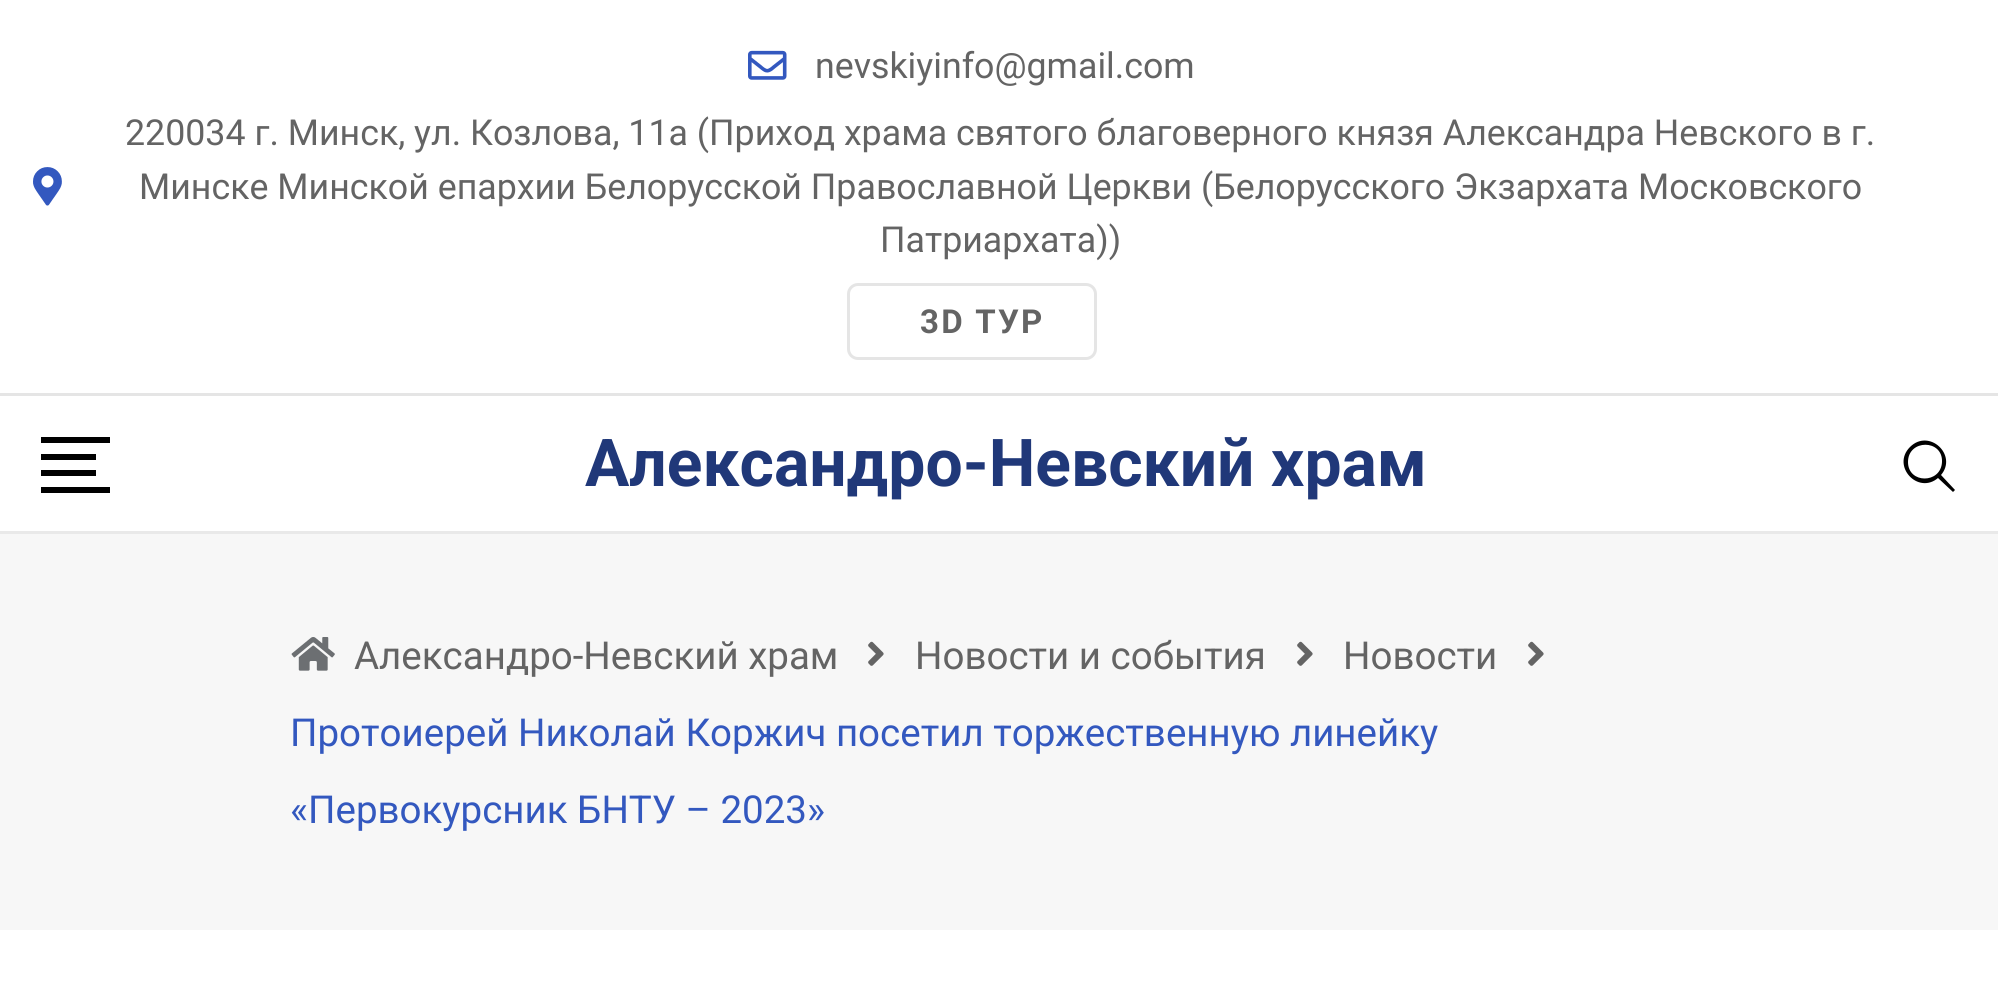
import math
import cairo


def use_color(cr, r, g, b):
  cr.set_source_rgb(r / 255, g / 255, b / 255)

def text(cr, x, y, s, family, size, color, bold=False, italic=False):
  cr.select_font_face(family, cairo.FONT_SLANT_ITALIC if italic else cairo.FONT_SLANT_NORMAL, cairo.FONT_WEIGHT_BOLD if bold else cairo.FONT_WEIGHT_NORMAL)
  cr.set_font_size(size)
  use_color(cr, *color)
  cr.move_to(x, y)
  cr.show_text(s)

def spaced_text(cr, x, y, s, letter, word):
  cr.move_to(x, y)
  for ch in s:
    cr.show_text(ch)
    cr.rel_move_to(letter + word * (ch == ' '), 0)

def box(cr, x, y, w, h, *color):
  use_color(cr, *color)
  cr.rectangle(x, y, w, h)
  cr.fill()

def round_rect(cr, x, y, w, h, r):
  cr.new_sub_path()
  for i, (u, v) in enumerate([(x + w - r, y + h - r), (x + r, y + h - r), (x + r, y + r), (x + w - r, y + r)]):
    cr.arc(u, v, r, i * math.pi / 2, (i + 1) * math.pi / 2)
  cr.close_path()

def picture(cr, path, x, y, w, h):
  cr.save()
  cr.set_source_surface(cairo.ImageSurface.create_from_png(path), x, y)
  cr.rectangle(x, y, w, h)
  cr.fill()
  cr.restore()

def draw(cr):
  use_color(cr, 255, 255, 255)
  cr.paint()
  box(cr, 0, 393, 1998, 3, 229, 229, 229)
  picture(cr, "img_01.png", 748, 50, 39, 30)
  picture(cr, "img_02.png", 33, 167, 29, 39)
  round_rect(cr, 848.5, 284.5, 247, 74, 9.5)
  cr.set_line_width(3)
  cr.stroke()
  box(cr, 0, 531, 1998, 3, 233, 233, 233)
  box(cr, 41, 437, 69, 6, 0, 0, 0)
  box(cr, 41, 454, 55, 6, 0, 0, 0)
  box(cr, 41, 470, 55, 6, 0, 0, 0)
  box(cr, 41, 487, 69, 6, 0, 0, 0)
  cr.new_path()
  cr.move_to(1955, 490)
  cr.line_to(1941, 475)
  cr.curve_to(1958, 455, 1929, 428, 1910, 447)
  cr.curve_to(1891, 466, 1918, 495, 1938, 478)
  cr.line_to(1953, 492)
  cr.close_path()
  cr.move_to(1908, 462)
  cr.curve_to(1908, 439, 1943, 439, 1942, 462)
  cr.curve_to(1941, 484, 1908, 484, 1908, 462)
  cr.close_path()
  cr.fill()
  box(cr, 0, 534, 1998, 396, 247, 247, 247)
  picture(cr, "img_03.png", 291, 637, 44, 34)
  picture(cr, "img_04.png", 868, 641, 16, 25)
  picture(cr, "img_04.png", 1297, 641, 16, 25)
  picture(cr, "img_04.png", 1528, 641, 16, 25)
  text(cr, 815, 78, "nevskiyinfo@gmail.com", "Roboto", 35.75, (100, 100, 100))
  text(cr, 125, 145, "220034 г. Минск, ул. Козлова, 11a (Приход храма святого благоверного князя Александра Невского в г.", "Roboto", 35.75, (100, 100, 100))
  text(cr, 139, 199, "Минске Минской епархии Белорусской Православной Церкви (Белорусского Экзархата Московского", "Roboto", 35.75, (100, 100, 100))
  text(cr, 880, 252, "Патриархата))", "Roboto", 35.75, (100, 100, 100))
  cr.select_font_face("Roboto", cairo.FONT_SLANT_NORMAL, cairo.FONT_WEIGHT_BOLD)
  cr.set_font_size(33)
  spaced_text(cr, 920, 333, "3D ТУР", 2.25, 0)
  text(cr, 585, 486, "Александро-Невский храм", "Roboto", 66, (32, 56, 121), bold=True)
  text(cr, 354, 669, "Александро-Невский храм", "Roboto", 38.5, (100, 100, 100))
  text(cr, 915, 669, "Новости и события", "Roboto", 38.5, (100, 100, 100))
  text(cr, 1343, 669, "Новости", "Roboto", 38.5, (100, 100, 100))
  text(cr, 290, 746, "Протоиерей Николай Коржич посетил торжественную линейку", "Roboto", 38.5, (51, 88, 191))
  text(cr, 290, 823, "«Первокурсник БНТУ – 2023»", "Roboto", 38.5, (51, 88, 191))


surface = cairo.ImageSurface(cairo.FORMAT_RGB24, 1998, 1006)
cr = cairo.Context(surface)
options = cairo.FontOptions()
options.set_hint_metrics(cairo.HINT_METRICS_OFF)
options.set_hint_style(cairo.HINT_STYLE_NONE)
cr.set_font_options(options)
cr.set_miter_limit(4)
draw(cr)
surface.write_to_png("out.png")
